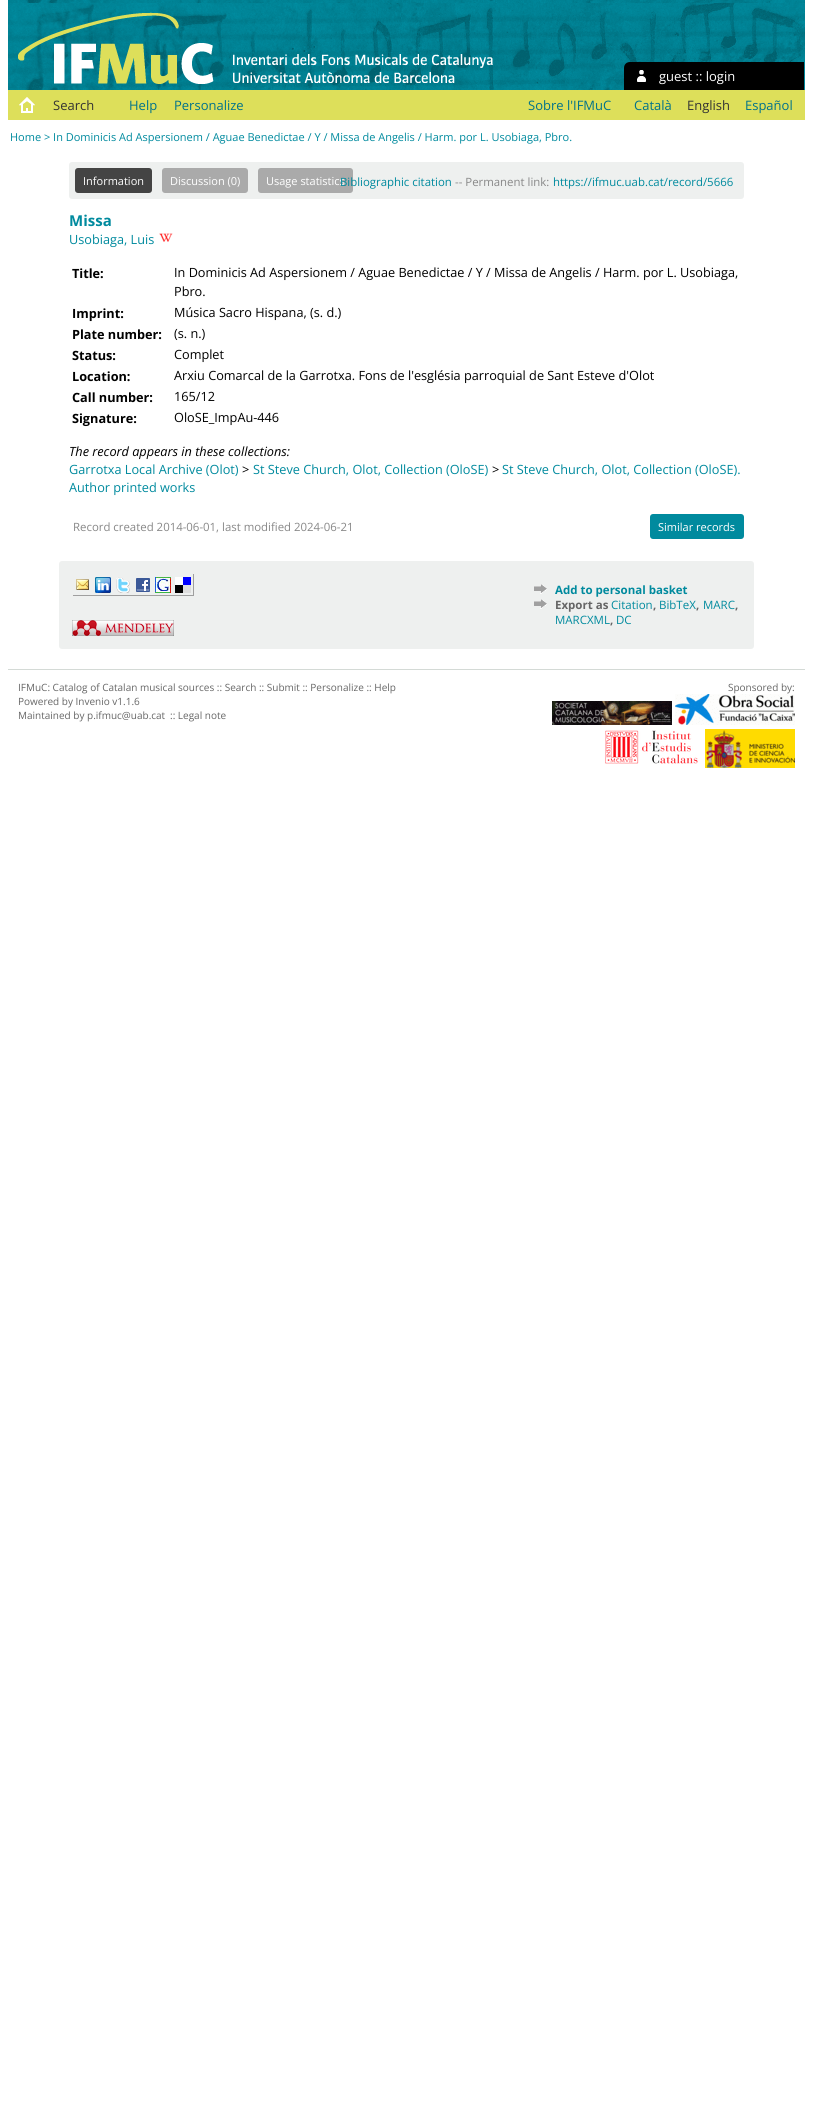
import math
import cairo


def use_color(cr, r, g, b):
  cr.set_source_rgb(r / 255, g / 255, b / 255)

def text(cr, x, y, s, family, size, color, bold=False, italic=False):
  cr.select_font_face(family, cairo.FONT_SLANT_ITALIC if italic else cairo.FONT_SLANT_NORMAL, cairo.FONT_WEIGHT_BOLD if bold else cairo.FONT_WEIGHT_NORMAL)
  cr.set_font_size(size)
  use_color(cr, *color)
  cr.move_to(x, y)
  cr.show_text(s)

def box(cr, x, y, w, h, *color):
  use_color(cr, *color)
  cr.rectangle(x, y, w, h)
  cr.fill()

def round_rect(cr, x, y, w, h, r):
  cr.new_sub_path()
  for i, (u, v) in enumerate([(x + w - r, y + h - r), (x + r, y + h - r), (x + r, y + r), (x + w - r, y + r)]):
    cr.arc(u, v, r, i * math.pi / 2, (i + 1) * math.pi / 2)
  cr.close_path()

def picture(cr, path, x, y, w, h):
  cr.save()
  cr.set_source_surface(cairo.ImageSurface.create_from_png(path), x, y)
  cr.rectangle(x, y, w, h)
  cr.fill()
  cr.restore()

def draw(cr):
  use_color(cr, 255, 255, 255)
  cr.paint()
  picture(cr, "img_01.png", 8, 0, 797, 90)
  use_color(cr, 0, 0, 0)
  cr.new_path()
  cr.move_to(630, 62)
  cr.line_to(804, 62)
  cr.line_to(804, 90)
  cr.line_to(624, 90)
  cr.line_to(624, 68)
  cr.curve_to(624, 64.5, 626.5, 62, 630, 62)
  cr.close_path()
  cr.fill()
  picture(cr, "img_02.png", 637, 70, 9, 12)
  box(cr, 8, 90, 797, 30, 221, 223, 90)
  picture(cr, "img_03.png", 19, 97, 16, 16)
  use_color(cr, 238, 240, 239)
  round_rect(cr, 69, 162, 675, 37, 3)
  cr.fill()
  use_color(cr, 68, 68, 68)
  round_rect(cr, 75, 168, 77, 25, 3)
  cr.fill()
  use_color(cr, 170, 170, 170)
  round_rect(cr, 162, 168, 86, 25, 3)
  cr.fill()
  round_rect(cr, 258, 168, 95, 25, 3)
  cr.fill()
  picture(cr, "img_04.png", 159, 233, 14, 9)
  use_color(cr, 0, 138, 158)
  round_rect(cr, 650, 514, 94, 25, 3)
  cr.fill()
  use_color(cr, 238, 240, 239)
  round_rect(cr, 59, 561, 695, 88, 3)
  cr.fill()
  box(cr, 193, 574, 1, 22, 159, 159, 159)
  box(cr, 72, 595, 122, 1, 159, 159, 159)
  box(cr, 72, 595, 1, 1, 238, 238, 238)
  picture(cr, "img_05.png", 76, 579, 13, 11)
  picture(cr, "img_06.png", 95, 577, 16, 16)
  picture(cr, "img_07.png", 116, 577, 14, 16)
  picture(cr, "img_08.png", 136, 578, 14, 14)
  picture(cr, "img_09.png", 155, 577, 16, 16)
  picture(cr, "img_10.png", 175, 577, 16, 16)
  picture(cr, "img_11.png", 72, 620, 102, 16)
  picture(cr, "img_12.png", 534, 584, 13, 10)
  picture(cr, "img_12.png", 534, 599, 13, 10)
  box(cr, 8, 669, 797, 1, 212, 218, 214)
  picture(cr, "img_13.png", 552, 701, 120, 24)
  picture(cr, "img_14.png", 675, 694, 120, 31)
  picture(cr, "img_15.png", 605, 730, 93, 34)
  picture(cr, "img_16.png", 705, 729, 90, 39)
  text(cr, 659, 81, "guest :: login", "Open Sans", 13, (255, 255, 255))
  text(cr, 53, 110, "Search", "Open Sans", 13, (51, 51, 51))
  text(cr, 129, 110, "Help", "Open Sans", 13, (0, 114, 138))
  text(cr, 174, 110, "Personalize", "Open Sans", 13, (0, 114, 138))
  text(cr, 528, 110, "Sobre l'IFMuC", "Open Sans", 13, (0, 114, 138))
  text(cr, 634, 110, "Català", "Open Sans", 13, (0, 114, 138))
  text(cr, 687, 110, "English", "Open Sans", 13, (51, 51, 51))
  text(cr, 745, 110, "Español", "Open Sans", 13, (0, 114, 138))
  text(cr, 10, 141, "Home > In Dominicis Ad Aspersionem / Aguae Benedictae / Y / Missa de Angelis / Harm. por L. Usobiaga, Pbro.", "Open Sans", 11, (0, 138, 158))
  text(cr, 83, 185, "Information", "Open Sans", 11, (255, 255, 255))
  text(cr, 170, 185, "Discussion (0)", "Open Sans", 11, (255, 255, 255))
  text(cr, 266, 185, "Usage statistics", "Open Sans", 11, (255, 255, 255))
  text(cr, 340, 186, "Bibliographic citation", "Open Sans", 11.4, (0, 138, 158))
  text(cr, 455, 186, "-- Permanent link:", "Open Sans", 11.4, (136, 136, 136))
  text(cr, 553, 186, "https://ifmuc.uab.cat/record/5666", "Open Sans", 11.4, (0, 138, 158))
  text(cr, 69, 226, "Missa", "Open Sans", 15, (0, 138, 158), bold=True)
  text(cr, 69, 244, "Usobiaga, Luis", "Open Sans", 12.7, (0, 138, 158))
  text(cr, 72, 278, "Title:", "Open Sans", 12.7, (0, 0, 0), bold=True)
  text(cr, 174, 277, "In Dominicis Ad Aspersionem / Aguae Benedictae / Y / Missa de Angelis / Harm. por L. Usobiaga,", "Open Sans", 12.7, (0, 0, 0))
  text(cr, 174, 296, "Pbro.", "Open Sans", 12.7, (0, 0, 0))
  text(cr, 72, 318, "Imprint:", "Open Sans", 12.7, (0, 0, 0), bold=True)
  text(cr, 174, 317, "Música Sacro Hispana, (s. d.)", "Open Sans", 12.7, (0, 0, 0))
  text(cr, 72, 339, "Plate number:", "Open Sans", 12.7, (0, 0, 0), bold=True)
  text(cr, 174, 338, "(s. n.)", "Open Sans", 12.7, (0, 0, 0))
  text(cr, 72, 360, "Status:", "Open Sans", 12.7, (0, 0, 0), bold=True)
  text(cr, 174, 359, "Complet", "Open Sans", 12.7, (0, 0, 0))
  text(cr, 72, 381, "Location:", "Open Sans", 12.7, (0, 0, 0), bold=True)
  text(cr, 174, 380, "Arxiu Comarcal de la Garrotxa. Fons de l'església parroquial de Sant Esteve d'Olot", "Open Sans", 12.7, (0, 0, 0))
  text(cr, 72, 402, "Call number:", "Open Sans", 12.7, (0, 0, 0), bold=True)
  text(cr, 174, 401, "165/12", "Open Sans", 12.7, (0, 0, 0))
  text(cr, 72, 423, "Signature:", "Open Sans", 12.7, (0, 0, 0), bold=True)
  text(cr, 174, 422, "OloSE_ImpAu-446", "Open Sans", 12.7, (0, 0, 0))
  text(cr, 69, 456, "The record appears in these collections:", "Open Sans", 12.7, (0, 0, 0), italic=True)
  text(cr, 69, 474, "Garrotxa Local Archive (Olot)", "Open Sans", 12.7, (0, 138, 158))
  text(cr, 242, 474, ">", "Open Sans", 12.7, (0, 0, 0))
  text(cr, 253, 474, "St Steve Church, Olot, Collection (OloSE)", "Open Sans", 12.7, (0, 138, 158))
  text(cr, 492, 474, ">", "Open Sans", 12.7, (0, 0, 0))
  text(cr, 502, 474, "St Steve Church, Olot, Collection (OloSE).", "Open Sans", 12.7, (0, 138, 158))
  text(cr, 69, 492, "Author printed works", "Open Sans", 12.7, (0, 138, 158))
  text(cr, 73, 531, "Record created 2014-06-01, last modified 2024-06-21", "Open Sans", 11.4, (136, 136, 136))
  text(cr, 658, 531, "Similar records", "Open Sans", 11, (255, 255, 255))
  text(cr, 555, 594, "Add to personal basket", "Open Sans", 11.5, (0, 138, 158), bold=True)
  text(cr, 555, 609, "Export as", "Open Sans", 11.5, (102, 102, 102), bold=True)
  text(cr, 611, 609, "Citation", "Open Sans", 11.5, (0, 138, 158))
  text(cr, 653, 609, ",", "Open Sans", 11.5, (102, 102, 102), bold=True)
  text(cr, 659, 609, "BibTeX", "Open Sans", 11.5, (0, 138, 158))
  text(cr, 696, 609, ",", "Open Sans", 11.5, (102, 102, 102), bold=True)
  text(cr, 703, 609, "MARC", "Open Sans", 11.5, (0, 138, 158))
  text(cr, 735, 609, ",", "Open Sans", 11.5, (102, 102, 102), bold=True)
  text(cr, 555, 624, "MARCXML", "Open Sans", 11.5, (0, 138, 158))
  text(cr, 610, 624, ",", "Open Sans", 11.5, (102, 102, 102), bold=True)
  text(cr, 616, 624, "DC", "Open Sans", 11.5, (0, 138, 158))
  text(cr, 18, 691, "IFMuC: Catalog of Catalan musical sources :: Search :: Submit :: Personalize :: Help", "Open Sans", 10, (102, 102, 102))
  text(cr, 18, 705, "Powered by Invenio v1.1.6", "Open Sans", 10, (102, 102, 102))
  text(cr, 18, 719, "Maintained by p.ifmuc@uab.cat", "Open Sans", 10, (102, 102, 102))
  text(cr, 170, 719, ":: Legal note", "Open Sans", 10, (102, 102, 102))
  text(cr, 728, 691, "Sponsored by:", "Open Sans", 10, (102, 102, 102))


surface = cairo.ImageSurface(cairo.FORMAT_RGB24, 813, 2123)
cr = cairo.Context(surface)
options = cairo.FontOptions()
options.set_hint_metrics(cairo.HINT_METRICS_OFF)
options.set_hint_style(cairo.HINT_STYLE_NONE)
cr.set_font_options(options)
cr.set_miter_limit(4)
draw(cr)
surface.write_to_png("out.png")
